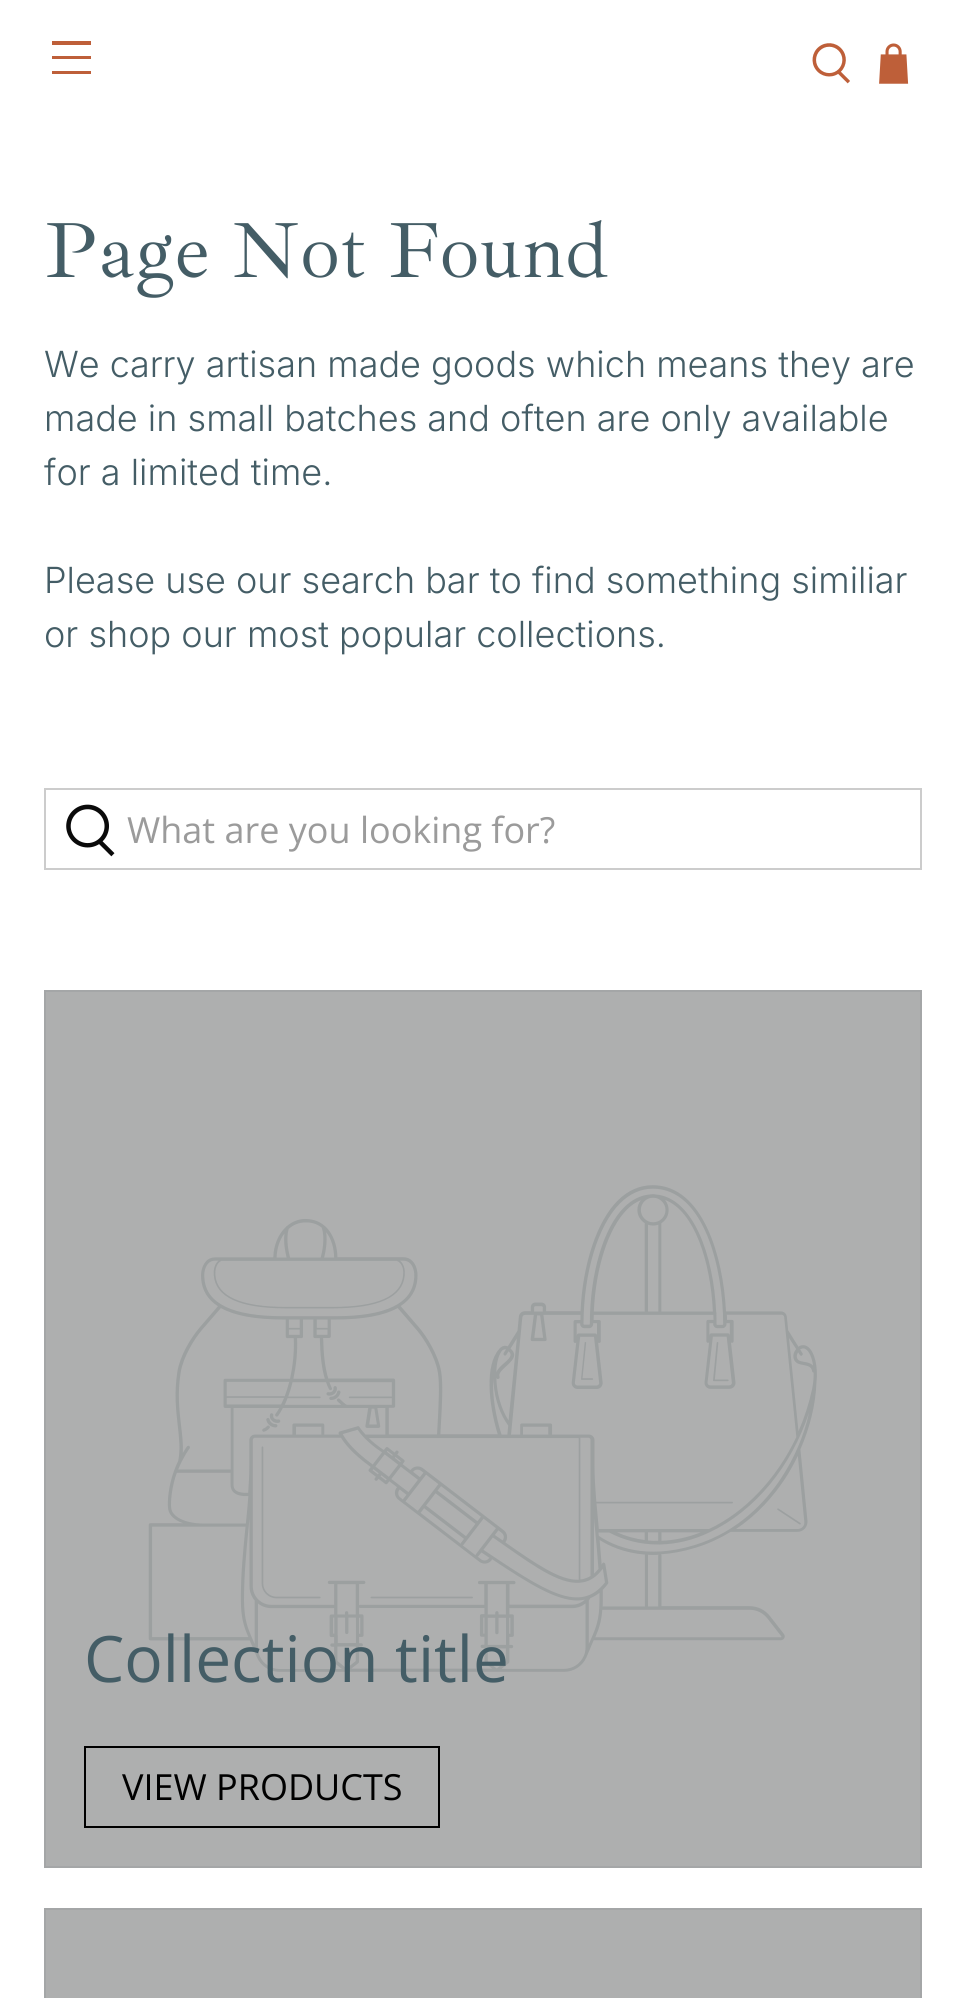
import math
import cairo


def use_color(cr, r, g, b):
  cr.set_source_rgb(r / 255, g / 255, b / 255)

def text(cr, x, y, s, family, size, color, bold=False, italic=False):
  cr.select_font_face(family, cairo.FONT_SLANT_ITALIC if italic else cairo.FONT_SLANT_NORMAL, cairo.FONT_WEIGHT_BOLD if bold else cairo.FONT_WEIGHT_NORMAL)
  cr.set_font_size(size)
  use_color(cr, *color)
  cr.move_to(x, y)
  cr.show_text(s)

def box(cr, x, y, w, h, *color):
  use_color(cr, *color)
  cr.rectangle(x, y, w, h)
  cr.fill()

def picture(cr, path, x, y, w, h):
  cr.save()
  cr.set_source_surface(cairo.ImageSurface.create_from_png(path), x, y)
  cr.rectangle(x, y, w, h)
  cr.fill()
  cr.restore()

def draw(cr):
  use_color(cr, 255, 255, 255)
  cr.paint()
  box(cr, 52, 41, 39, 4, 190, 95, 57)
  box(cr, 52, 56, 39, 3, 190, 95, 57)
  box(cr, 52, 71, 39, 3, 190, 95, 57)
  picture(cr, "img_01.png", 812, 43, 38, 41)
  picture(cr, "img_02.png", 879, 43, 30, 41)
  cr.rectangle(45, 789, 876, 80)
  use_color(cr, 204, 204, 204)
  cr.stroke()
  picture(cr, "img_03.png", 66, 804, 49, 53)
  use_color(cr, 174, 175, 175)
  cr.rectangle(45, 991, 876, 876)
  cr.fill_preserve()
  use_color(cr, 164, 166, 167)
  cr.stroke()
  picture(cr, "img_04.png", 148, 1185, 669, 487)
  cr.rectangle(85, 1747, 354, 80)
  use_color(cr, 0, 0, 0)
  cr.stroke()
  use_color(cr, 174, 175, 175)
  cr.rectangle(45, 1909, 876, 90)
  cr.fill_preserve()
  use_color(cr, 164, 166, 167)
  cr.stroke()
  text(cr, 44, 277, "Page Not Found", "Ibarra Real Nova", 80, (68, 93, 102))
  text(cr, 44, 377, "We carry artisan made goods which means they are", "Inter Light", 36, (68, 93, 102))
  text(cr, 44, 431, "made in small batches and often are only available", "Inter Light", 36, (68, 93, 102))
  text(cr, 44, 485, "for a limited time.", "Inter Light", 36, (68, 93, 102))
  text(cr, 44, 593, "Please use our search bar to find something similiar", "Inter Light", 36, (68, 93, 102))
  text(cr, 44, 647, "or shop our most popular collections.", "Inter Light", 36, (68, 93, 102))
  text(cr, 127, 843, "What are you looking for?", "Open Sans", 36, (155, 155, 155))
  text(cr, 84, 1682, "Collection title", "Open Sans", 64, (68, 93, 102))
  text(cr, 122, 1800, "VIEW PRODUCTS", "Open Sans", 36, (0, 0, 0))


surface = cairo.ImageSurface(cairo.FORMAT_RGB24, 965, 1998)
cr = cairo.Context(surface)
options = cairo.FontOptions()
options.set_hint_metrics(cairo.HINT_METRICS_OFF)
options.set_hint_style(cairo.HINT_STYLE_NONE)
cr.set_font_options(options)
cr.set_miter_limit(4)
draw(cr)
surface.write_to_png("out.png")
